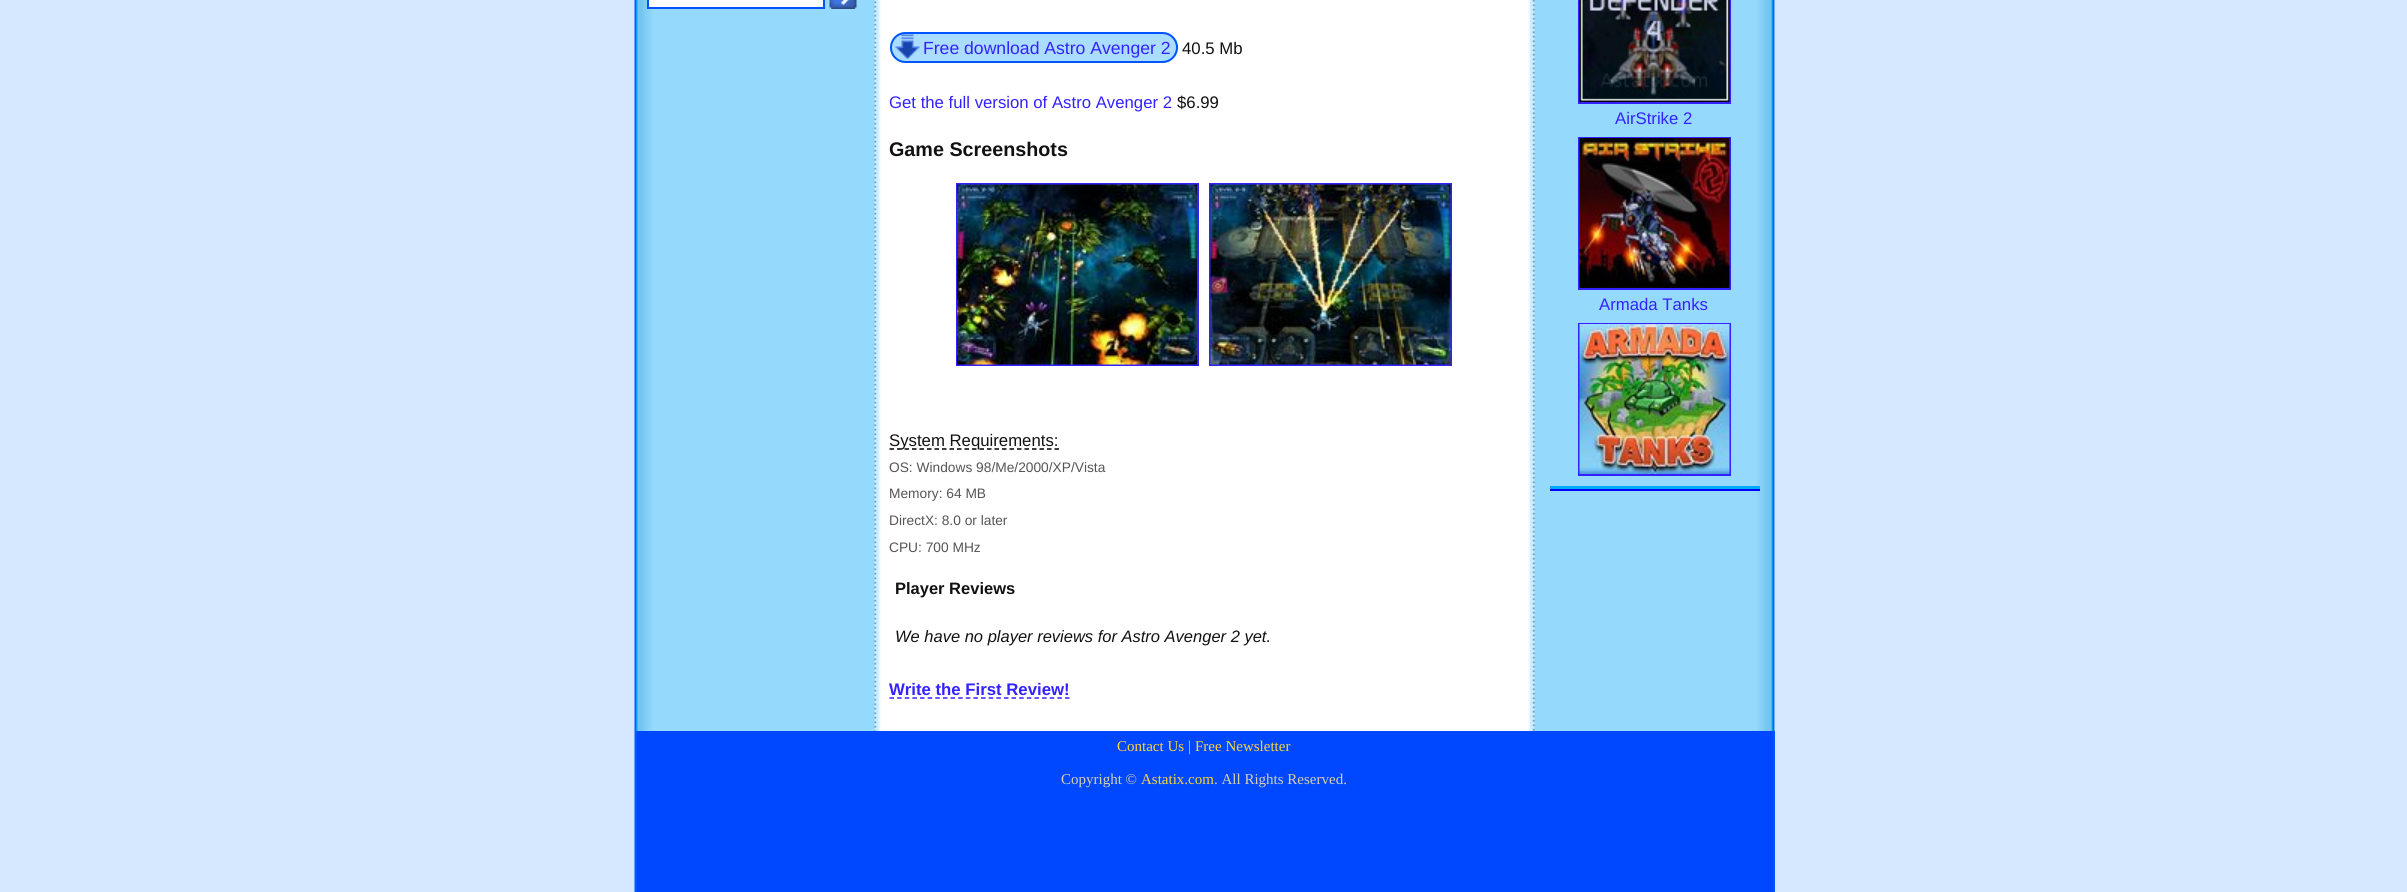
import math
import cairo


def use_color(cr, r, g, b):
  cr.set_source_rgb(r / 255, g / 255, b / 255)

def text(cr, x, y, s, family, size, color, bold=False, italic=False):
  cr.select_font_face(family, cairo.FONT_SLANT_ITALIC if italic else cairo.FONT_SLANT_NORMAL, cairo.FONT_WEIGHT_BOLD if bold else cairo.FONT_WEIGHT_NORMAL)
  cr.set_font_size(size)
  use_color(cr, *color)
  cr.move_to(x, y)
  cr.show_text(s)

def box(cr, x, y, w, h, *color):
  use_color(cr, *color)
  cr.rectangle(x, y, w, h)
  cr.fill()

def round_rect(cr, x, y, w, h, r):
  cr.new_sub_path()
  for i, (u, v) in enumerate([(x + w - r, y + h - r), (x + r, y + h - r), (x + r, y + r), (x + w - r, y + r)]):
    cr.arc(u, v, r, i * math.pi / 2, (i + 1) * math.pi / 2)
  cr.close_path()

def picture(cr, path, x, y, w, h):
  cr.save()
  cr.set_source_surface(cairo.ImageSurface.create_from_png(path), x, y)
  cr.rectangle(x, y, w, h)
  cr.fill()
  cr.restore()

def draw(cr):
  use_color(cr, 213, 232, 255)
  cr.paint()
  box(cr, 1774, 0, 1, 731, 255, 255, 255)
  picture(cr, "img_01.png", 634, 0, 1141, 892)
  cr.rectangle(648, -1, 176, 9)
  cr.fill_preserve()
  use_color(cr, 0, 85, 255)
  cr.stroke()
  picture(cr, "img_02.png", 829, 0, 28, 9)
  use_color(cr, 170, 221, 255)
  round_rect(cr, 890, 32, 288, 31, 15.5)
  cr.fill()
  picture(cr, "img_03.png", 895, 34, 25, 25)
  round_rect(cr, 891, 33, 286, 29, 14.5)
  use_color(cr, 0, 85, 255)
  cr.stroke()
  cr.rectangle(957, 184, 241, 181)
  use_color(cr, 51, 34, 255)
  cr.stroke()
  cr.rectangle(1210, 184, 241, 181)
  cr.stroke()
  picture(cr, "img_04.png", 957, 184, 240, 181)
  picture(cr, "img_05.png", 1210, 184, 241, 181)
  cr.new_path()
  cr.move_to(889.5, 449)
  cr.line_to(1059, 449)
  use_color(cr, 0, 0, 0)
  cr.set_line_width(1.5)
  cr.set_dash([4.5, 3])
  cr.stroke()
  cr.new_path()
  cr.move_to(889.5, 698)
  cr.line_to(1069.5, 698)
  use_color(cr, 51, 34, 255)
  cr.set_dash([4.5, 3.13])
  cr.stroke()
  cr.rectangle(1579, -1, 151, 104)
  cr.set_line_width(2)
  cr.set_dash([])
  cr.stroke()
  picture(cr, "img_06.png", 1579, 0, 151, 102)
  cr.rectangle(1579, 138, 151, 151)
  cr.stroke()
  picture(cr, "img_07.png", 1579, 138, 151, 150)
  cr.rectangle(1579, 324, 151, 151)
  cr.stroke()
  picture(cr, "img_08.png", 1579, 324, 151, 150)
  box(cr, 1550, 486, 210, 3, 0, 170, 255)
  box(cr, 1550, 489, 210, 2, 0, 0, 255)
  box(cr, 637, 731, 1136, 161, 0, 72, 255)
  box(cr, 1773, 731, 2, 161, 0, 85, 255)
  box(cr, 635, 731, 2, 161, 0, 85, 255)
  text(cr, 923, 54, "Free download Astro Avenger 2", "Liberation Sans", 17.6, (51, 34, 255))
  text(cr, 1182, 54, "40.5 Mb", "Liberation Sans", 16.75, (17, 17, 17))
  text(cr, 889, 108, "Get the full version of Astro Avenger 2", "Liberation Sans", 16.75, (51, 34, 255))
  text(cr, 1177, 108, "$6.99", "Liberation Sans", 16.75, (17, 17, 17))
  text(cr, 889, 156, "Game Screenshots", "Liberation Sans", 19.75, (17, 17, 17), bold=True)
  text(cr, 889, 446, "System Requirements:", "Liberation Sans", 16.75, (17, 17, 17))
  text(cr, 889, 472, "OS: Windows 98/Me/2000/XP/Vista", "Liberation Sans", 13.75, (85, 85, 85))
  text(cr, 889, 498, "Memory: 64 MB", "Liberation Sans", 13.75, (85, 85, 85))
  text(cr, 889, 525, "DirectX: 8.0 or later", "Liberation Sans", 13.75, (85, 85, 85))
  text(cr, 889, 552, "CPU: 700 MHz", "Liberation Sans", 13.75, (85, 85, 85))
  text(cr, 895, 594, "Player Reviews", "Liberation Sans", 16.5, (17, 17, 17), bold=True)
  text(cr, 895, 642, "We have no player reviews for Astro Avenger 2 yet.", "Liberation Sans", 16.5, (17, 17, 17), italic=True)
  text(cr, 889, 695, "Write the First Review!", "Liberation Sans", 16.75, (51, 34, 255), bold=True)
  text(cr, 1615, 124, "AirStrike 2", "Liberation Sans", 16.75, (51, 34, 255))
  text(cr, 1599, 310, "Armada Tanks", "Liberation Sans", 16.75, (51, 34, 255))
  text(cr, 1117, 751, "Contact Us", "Liberation Serif", 15, (251, 213, 57))
  text(cr, 1188, 751, "|", "Liberation Serif", 15, (213, 208, 176))
  text(cr, 1195, 751, "Free Newsletter", "Liberation Serif", 15, (251, 213, 57))
  text(cr, 1061, 784, "Copyright ©", "Liberation Serif", 15, (213, 208, 176))
  text(cr, 1141, 784, "Astatix.com", "Liberation Serif", 15, (251, 213, 57))
  text(cr, 1214, 784, ". All Rights Reserved.", "Liberation Serif", 15, (213, 208, 176))


surface = cairo.ImageSurface(cairo.FORMAT_RGB24, 2407, 892)
cr = cairo.Context(surface)
options = cairo.FontOptions()
options.set_hint_metrics(cairo.HINT_METRICS_OFF)
options.set_hint_style(cairo.HINT_STYLE_NONE)
cr.set_font_options(options)
cr.set_miter_limit(4)
draw(cr)
surface.write_to_png("out.png")
